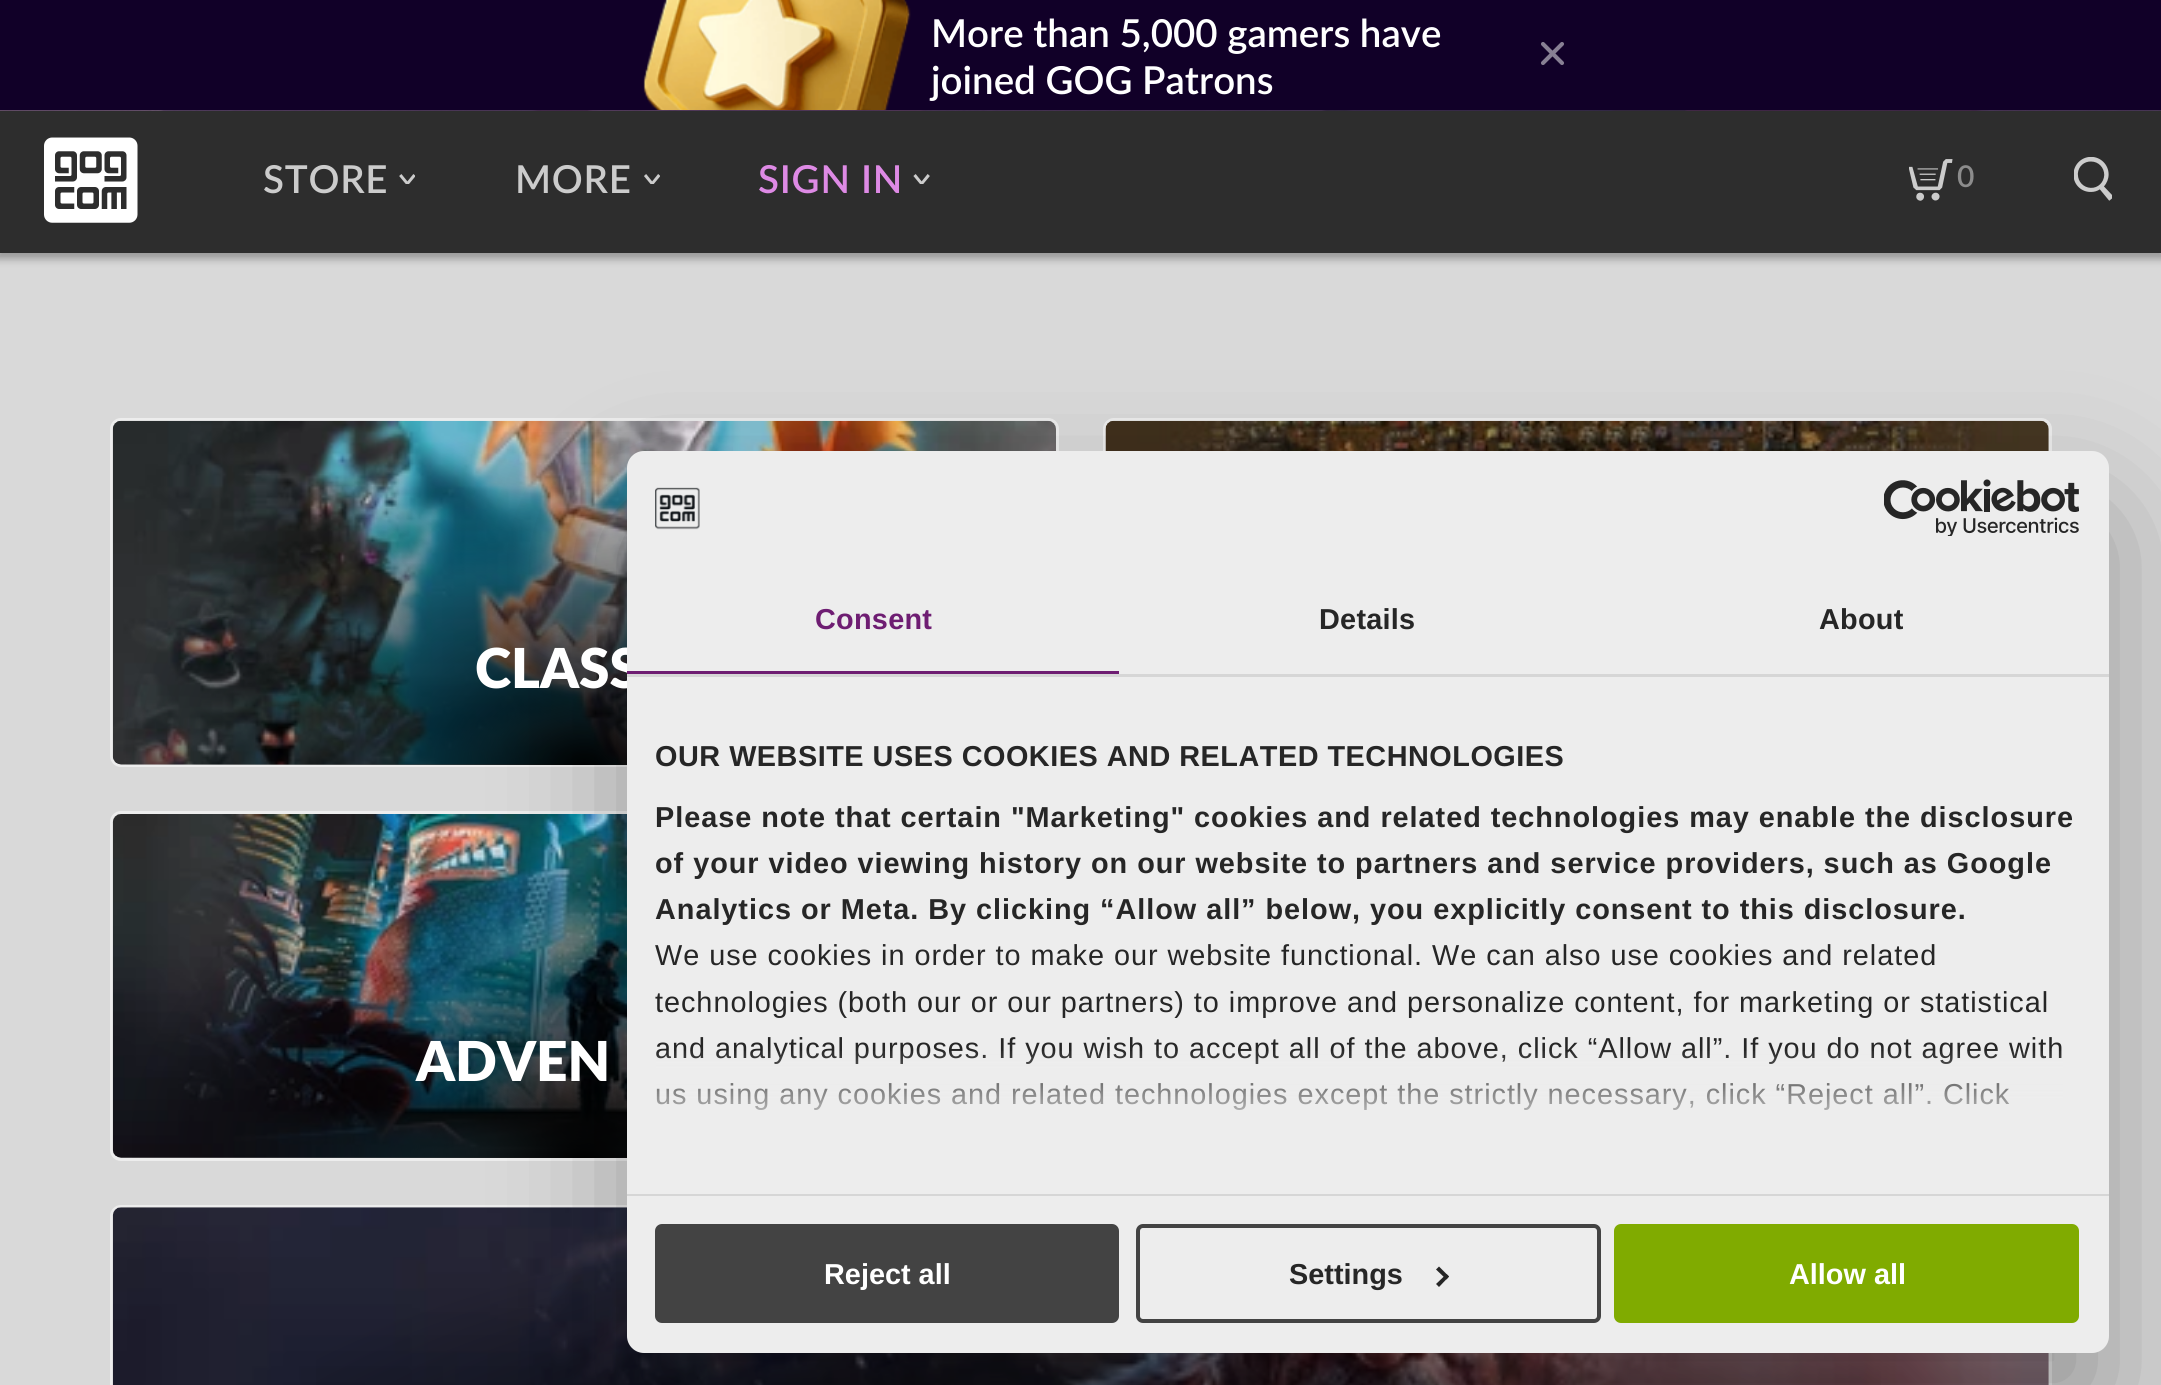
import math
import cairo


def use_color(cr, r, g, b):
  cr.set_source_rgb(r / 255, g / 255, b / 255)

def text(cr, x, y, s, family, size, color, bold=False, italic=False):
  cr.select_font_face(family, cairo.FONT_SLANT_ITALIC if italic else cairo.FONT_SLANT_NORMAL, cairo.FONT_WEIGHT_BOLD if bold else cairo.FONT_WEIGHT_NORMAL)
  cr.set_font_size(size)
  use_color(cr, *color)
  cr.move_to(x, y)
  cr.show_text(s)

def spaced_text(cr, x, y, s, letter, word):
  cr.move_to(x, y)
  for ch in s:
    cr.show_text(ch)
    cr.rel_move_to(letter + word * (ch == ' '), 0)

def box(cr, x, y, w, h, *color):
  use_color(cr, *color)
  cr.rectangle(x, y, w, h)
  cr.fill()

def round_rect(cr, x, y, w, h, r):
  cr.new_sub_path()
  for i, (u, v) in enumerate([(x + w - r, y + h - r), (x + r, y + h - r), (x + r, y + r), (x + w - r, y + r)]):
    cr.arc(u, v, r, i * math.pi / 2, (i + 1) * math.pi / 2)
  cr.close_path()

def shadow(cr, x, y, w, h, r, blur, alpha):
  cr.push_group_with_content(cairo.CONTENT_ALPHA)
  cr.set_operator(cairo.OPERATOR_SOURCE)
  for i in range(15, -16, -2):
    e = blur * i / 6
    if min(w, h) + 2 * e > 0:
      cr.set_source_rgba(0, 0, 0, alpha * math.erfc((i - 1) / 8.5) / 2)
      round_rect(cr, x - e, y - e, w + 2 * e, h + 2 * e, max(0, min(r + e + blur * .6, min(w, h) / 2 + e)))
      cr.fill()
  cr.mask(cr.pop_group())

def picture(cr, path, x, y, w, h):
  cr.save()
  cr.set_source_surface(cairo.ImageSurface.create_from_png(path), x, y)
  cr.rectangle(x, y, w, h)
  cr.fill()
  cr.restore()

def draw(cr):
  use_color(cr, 217, 217, 217)
  cr.paint()
  use_color(cr, 0, 0, 0)
  shadow(cr, -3, 99, 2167, 160, 0, 4, 0.3)
  box(cr, 0, 0, 2161, 110, 17, 0, 40)
  picture(cr, "img_01.png", 643, 0, 268, 110)
  cr.new_path()
  cr.move_to(1543, 44)
  cr.line_to(1562, 63)
  cr.move_to(1562, 44)
  cr.line_to(1543, 63)
  use_color(cr, 136, 128, 148)
  cr.set_line_width(4.1)
  cr.set_line_cap(cairo.LINE_CAP_ROUND)
  cr.stroke()
  box(cr, 0, 110, 2161, 143, 45, 45, 45)
  picture(cr, "img_02.png", 0, 110, 2161, 1)
  picture(cr, "img_03.png", 44, 137, 94, 86)
  picture(cr, "img_04.png", 399, 174, 16, 10)
  picture(cr, "img_05.png", 644, 174, 16, 10)
  picture(cr, "img_06.png", 913, 174, 17, 10)
  picture(cr, "img_07.png", 1909, 159, 44, 42)
  picture(cr, "img_08.png", 2074, 157, 38, 44)
  use_color(cr, 237, 237, 237)
  round_rect(cr, 110, 418, 949, 349, 11)
  cr.fill()
  picture(cr, "img_09.png", 112, 420, 944, 345)
  gradient = cairo.RadialGradient(0, 0, 0, 0, 0, 1)
  gradient.set_matrix(cairo.Matrix(1 / 667, 0, 0, 1 / 494, -1 * 584 / 667, -1 * 770 / 494))
  gradient.add_color_stop_rgba(0, 0, 0, 0, 1)
  gradient.add_color_stop_rgba(0.7, 0, 0, 0, 0)
  cr.set_source(gradient)
  cr.rectangle(126, 432, 607, 333)
  cr.fill()
  use_color(cr, 237, 237, 237)
  round_rect(cr, 1103, 418, 949, 349, 11)
  cr.fill()
  picture(cr, "img_10.png", 1105, 420, 944, 31)
  gradient = cairo.RadialGradient(0, 0, 0, 0, 0, 1)
  gradient.set_matrix(cairo.Matrix(1 / 667, 0, 0, 1 / 494, -1 * 1577 / 667, -1 * 770 / 494))
  gradient.add_color_stop_rgba(0, 0, 0, 0, 1)
  gradient.add_color_stop_rgba(0.7, 0, 0, 0, 0)
  cr.set_source(gradient)
  cr.rectangle(1438, 432, 266, 19)
  cr.fill()
  use_color(cr, 237, 237, 237)
  round_rect(cr, 110, 811, 949, 350, 11)
  cr.fill()
  picture(cr, "img_11.png", 112, 814, 515, 344)
  gradient = cairo.RadialGradient(0, 0, 0, 0, 0, 1)
  gradient.set_matrix(cairo.Matrix(1 / 667, 0, 0, 1 / 494, -1 * 584 / 667, -1 * 1163 / 494))
  gradient.add_color_stop_rgba(0, 0, 0, 0, 1)
  gradient.add_color_stop_rgba(0.7, 0, 0, 0, 0)
  cr.set_source(gradient)
  cr.rectangle(132, 825, 495, 333)
  cr.fill()
  use_color(cr, 237, 237, 237)
  round_rect(cr, 110, 1205, 1942, 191, 11)
  cr.fill()
  picture(cr, "img_12.png", 112, 1207, 1937, 178)
  gradient = cairo.RadialGradient(0, 0, 0, 0, 0, 1)
  gradient.set_matrix(cairo.Matrix(1 / 1369, 0, 0, 1 / 494, -1 * 1081 / 1369, -1 * 1557 / 494))
  gradient.add_color_stop_rgba(0, 0, 0, 0, 1)
  gradient.add_color_stop_rgba(0.7, 0, 0, 0, 0)
  cr.set_source(gradient)
  cr.rectangle(316, 1261, 1565, 124)
  cr.fill()
  use_color(cr, 0, 0, 0)
  shadow(cr, 627, 512, 1482, 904, 17, 65.5, 0.3)
  text(cr, 931, 47, "More than 5,000 gamers have", "Lato SemiBold", 38.5, (255, 255, 255))
  text(cr, 931, 94, "joined GOG Patrons", "Lato SemiBold", 38.5, (255, 255, 255))
  cr.select_font_face("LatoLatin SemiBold")
  use_color(cr, 204, 204, 204)
  spaced_text(cr, 263, 193, "STORE", 0.75, 0)
  spaced_text(cr, 515, 193, "MORE", 0.75, 0)
  use_color(cr, 222, 138, 229)
  spaced_text(cr, 758, 193, "SIGN IN", 0.75, 0)
  cr.set_font_size(30)
  use_color(cr, 140, 140, 140)
  spaced_text(cr, 1957, 187, "0", 0.75, 0)
  text(cr, 475, 688, "CLASS", "LatoLatin Black", 55, (255, 255, 255))
  text(cr, 416, 1081, "ADVEN", "LatoLatin Black", 55, (255, 255, 255))
  use_color(cr, 237, 237, 237)
  round_rect(cr, 627, 451, 1482, 902, 17)
  cr.fill()
  picture(cr, "img_13.png", 655, 487, 45, 43)
  picture(cr, "img_14.png", 1884, 479, 195, 57)
  box(cr, 627, 674, 1482, 3, 214, 214, 214)
  box(cr, 627, 671, 492, 3, 110, 29, 114)
  cr.select_font_face("Liberation Sans", cairo.FONT_SLANT_NORMAL, cairo.FONT_WEIGHT_BOLD)
  cr.set_font_size(28.85)
  spaced_text(cr, 815, 629, "Consent", 0.25, 0)
  use_color(cr, 38, 38, 38)
  spaced_text(cr, 1319, 629, "Details", 0.25, 0)
  spaced_text(cr, 1819, 629, "About", 0.25, 0)
  box(cr, 627, 1194, 1482, 2, 214, 214, 214)
  use_color(cr, 38, 38, 38)
  spaced_text(cr, 655, 766, "OUR WEBSITE USES COOKIES AND RELATED TECHNOLOGIES", 0.5, 0)
  spaced_text(cr, 655, 827, "Please note that certain \"Marketing\" cookies and related technologies may enable the disclosure", 0.96, 0)
  spaced_text(cr, 655, 873, "of your video viewing history on our website to partners and service providers, such as Google", 0.96, 0)
  spaced_text(cr, 655, 919, "Analytics or Meta. By clicking “Allow all” below, you explicitly consent to this disclosure.", 0.96, 0)
  cr.select_font_face("Liberation Sans")
  spaced_text(cr, 655, 965, "We use cookies in order to make our website functional. We can also use cookies and related", 0.96, 0)
  spaced_text(cr, 655, 1012, "technologies (both our or our partners) to improve and personalize content, for marketing or statistical", 0.96, 0)
  spaced_text(cr, 655, 1058, "and analytical purposes. If you wish to accept all of the above, click “Allow all”. If you do not agree with", 0.96, 0)
  spaced_text(cr, 655, 1104, "us using any cookies and related technologies except the strictly necessary, click “Reject all”. Click", 0.96, 0)
  gradient = cairo.LinearGradient(1355, 1193, 1355, 1049)
  gradient.add_color_stop_rgba(0, 0.929, 0.929, 0.929, 1)
  gradient.add_color_stop_rgba(0.5, 0.929, 0.929, 0.929, 0.8)
  gradient.add_color_stop_rgba(1, 0.929, 0.929, 0.929, 0)
  cr.set_source(gradient)
  cr.rectangle(656, 1051, 1407, 59)
  cr.fill()
  use_color(cr, 67, 67, 67)
  round_rect(cr, 657, 1226, 460, 95, 5)
  cr.fill_preserve()
  cr.set_line_width(4)
  cr.set_line_cap(cairo.LINE_CAP_BUTT)
  cr.stroke()
  text(cr, 824, 1284, "Reject all", "Liberation Sans", 28.85, (255, 255, 255), bold=True)
  round_rect(cr, 1138, 1226, 461, 95, 5)
  use_color(cr, 67, 67, 67)
  cr.stroke()
  text(cr, 1289, 1284, "Settings", "Liberation Sans", 28.85, (38, 38, 38), bold=True)
  cr.new_path()
  cr.move_to(1439, 1266.5)
  cr.line_to(1449, 1276.5)
  cr.line_to(1446.5, 1279.5)
  cr.line_to(1436, 1269.5)
  cr.close_path()
  cr.fill()
  cr.new_path()
  cr.move_to(1446.5, 1274)
  cr.line_to(1449, 1276.5)
  cr.line_to(1439, 1287)
  cr.line_to(1436, 1284)
  cr.close_path()
  cr.fill()
  use_color(cr, 128, 171, 0)
  round_rect(cr, 1616, 1226, 461, 95, 5)
  cr.fill_preserve()
  cr.stroke()
  text(cr, 1789, 1284, "Allow all", "Liberation Sans", 28.85, (255, 255, 255), bold=True)


surface = cairo.ImageSurface(cairo.FORMAT_RGB24, 2161, 1385)
cr = cairo.Context(surface)
options = cairo.FontOptions()
options.set_hint_metrics(cairo.HINT_METRICS_OFF)
options.set_hint_style(cairo.HINT_STYLE_NONE)
cr.set_font_options(options)
cr.set_miter_limit(4)
draw(cr)
surface.write_to_png("out.png")
